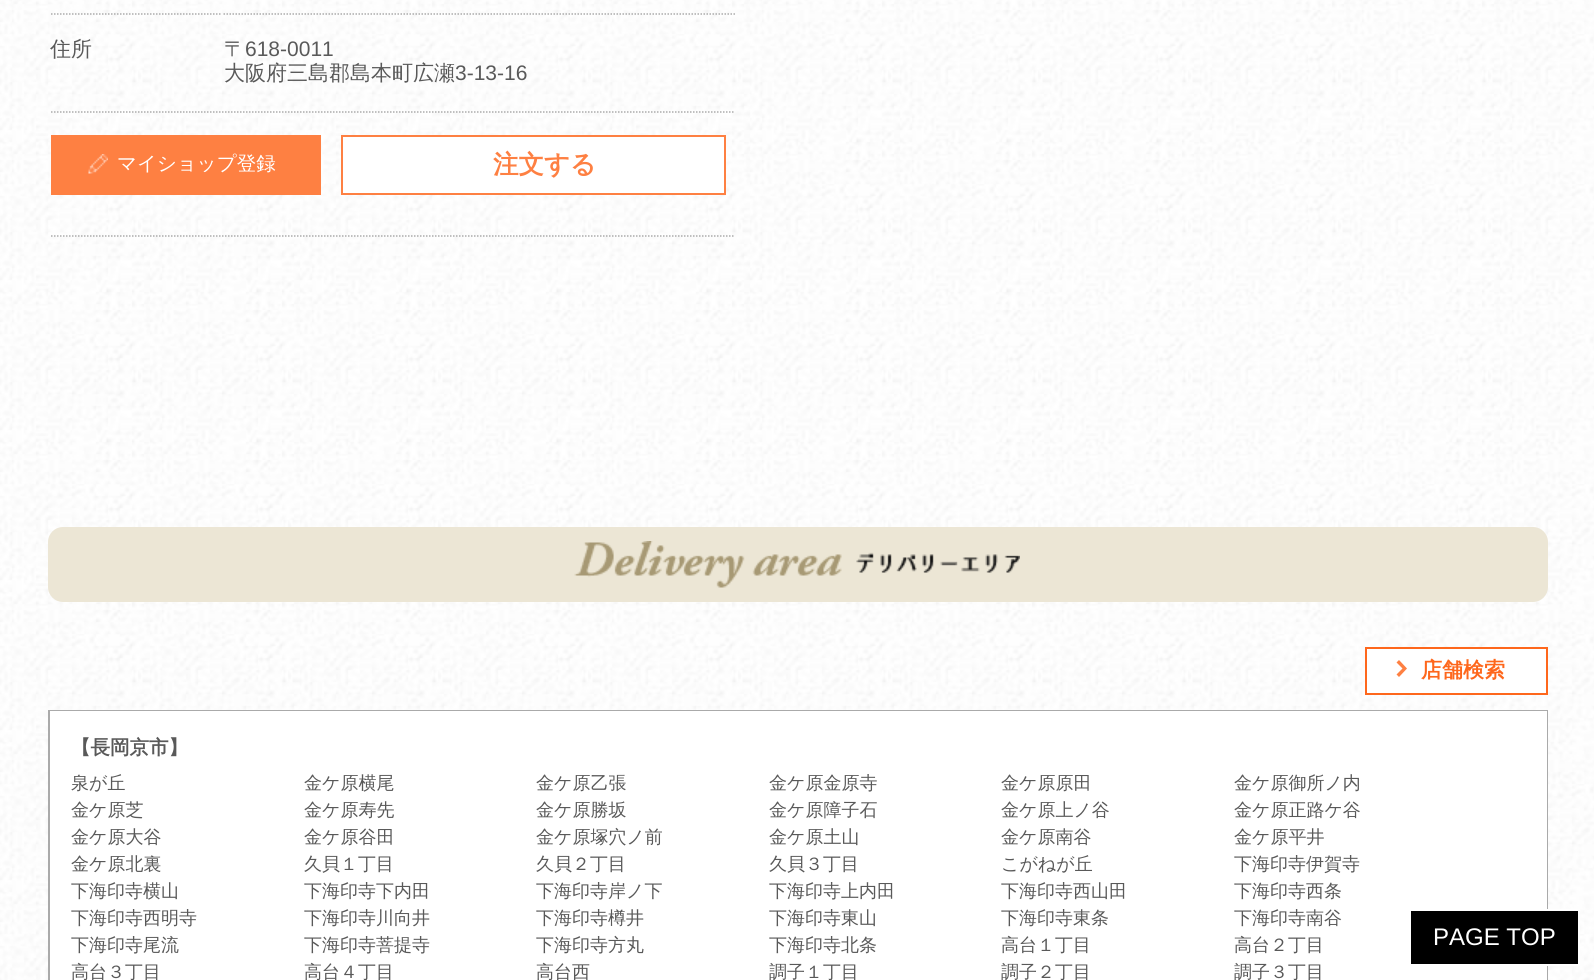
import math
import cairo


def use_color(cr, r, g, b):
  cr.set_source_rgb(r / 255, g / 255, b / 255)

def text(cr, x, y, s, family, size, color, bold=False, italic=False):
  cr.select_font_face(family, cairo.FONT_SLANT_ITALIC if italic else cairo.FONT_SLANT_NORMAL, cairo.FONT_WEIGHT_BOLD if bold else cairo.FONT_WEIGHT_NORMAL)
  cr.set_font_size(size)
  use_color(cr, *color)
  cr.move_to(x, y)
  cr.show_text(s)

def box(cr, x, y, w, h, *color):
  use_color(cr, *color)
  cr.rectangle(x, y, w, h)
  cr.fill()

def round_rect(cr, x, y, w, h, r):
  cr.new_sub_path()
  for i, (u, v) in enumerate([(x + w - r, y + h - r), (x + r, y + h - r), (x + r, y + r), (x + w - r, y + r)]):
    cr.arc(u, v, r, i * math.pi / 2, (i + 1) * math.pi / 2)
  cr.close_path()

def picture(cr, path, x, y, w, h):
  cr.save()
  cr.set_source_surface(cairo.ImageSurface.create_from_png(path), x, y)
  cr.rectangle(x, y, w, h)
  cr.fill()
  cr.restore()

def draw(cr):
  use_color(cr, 255, 255, 255)
  cr.paint()
  picture(cr, "img_01.png", 0, 0, 1594, 980)
  cr.new_path()
  cr.move_to(51, 14)
  cr.line_to(220.5, 14)
  use_color(cr, 171, 171, 171)
  cr.set_line_width(1.5)
  cr.set_dash([1.5, 1.5])
  cr.stroke()
  cr.new_path()
  cr.move_to(223.5, 14)
  cr.line_to(735, 14)
  cr.stroke()
  cr.new_path()
  cr.move_to(51, 112)
  cr.line_to(735, 112)
  cr.stroke()
  box(cr, 51, 135, 270, 60, 254, 128, 66)
  picture(cr, "img_02.png", 88, 154, 20, 20)
  use_color(cr, 255, 255, 255)
  cr.rectangle(342, 136, 383, 58)
  cr.fill_preserve()
  use_color(cr, 254, 128, 66)
  cr.set_line_width(2)
  cr.set_dash([])
  cr.stroke()
  cr.new_path()
  cr.move_to(51, 236)
  cr.line_to(735, 236)
  use_color(cr, 171, 171, 171)
  cr.set_line_width(1.5)
  cr.set_dash([1.5, 1.5])
  cr.stroke()
  use_color(cr, 236, 230, 213)
  round_rect(cr, 48, 527, 1500, 75, 15)
  cr.fill()
  picture(cr, "img_03.png", 574, 541, 446, 47)
  use_color(cr, 255, 255, 255)
  cr.rectangle(1366, 648, 181, 46)
  cr.fill_preserve()
  use_color(cr, 254, 103, 28)
  cr.set_line_width(2)
  cr.set_dash([])
  cr.stroke()
  use_color(cr, 254, 128, 66)
  cr.new_path()
  cr.move_to(1399, 660)
  cr.line_to(1407, 668.5)
  cr.line_to(1399, 677)
  cr.line_to(1390.5, 668.5)
  cr.close_path()
  cr.fill()
  use_color(cr, 255, 255, 255)
  cr.new_path()
  cr.move_to(1394, 660)
  cr.line_to(1402.5, 668.5)
  cr.line_to(1394, 677)
  cr.line_to(1386, 668.5)
  cr.close_path()
  cr.fill()
  cr.rectangle(49, 711, 1498, 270)
  use_color(cr, 170, 170, 170)
  cr.stroke()
  box(cr, 50, 711, 1497, 269, 255, 255, 255)
  use_color(cr, 0, 0, 0)
  cr.rectangle(1410, 910, 169, 55)
  cr.fill_preserve()
  use_color(cr, 255, 255, 255)
  cr.stroke()
  text(cr, 50, 56, "住所", "WenQuanYi Zen Hei Medium", 21, (89, 89, 89))
  text(cr, 224, 56, "〒", "WenQuanYi Zen Hei Medium", 21, (89, 89, 89))
  text(cr, 245, 56, "618-0011", "Liberation Sans", 21, (89, 89, 89))
  text(cr, 224, 80, "大阪府三島郡島本町広瀬", "WenQuanYi Zen Hei Medium", 21, (89, 89, 89))
  text(cr, 455, 80, "3-13-16", "Liberation Sans", 21, (89, 89, 89))
  text(cr, 117, 170, "マイショップ登録", "WenQuanYi Zen Hei Medium", 19.5, (255, 255, 255))
  text(cr, 493, 173, "注文する", "WenQuanYi Zen Hei", 25.5, (254, 128, 66), bold=True)
  text(cr, 1421, 677, "店舗検索", "WenQuanYi Zen Hei", 21, (254, 103, 28), bold=True)
  text(cr, 71, 754, "【長岡京市】", "WenQuanYi Zen Hei", 19.5, (89, 89, 89), bold=True)
  text(cr, 71, 789, "泉が丘", "WenQuanYi Zen Hei Medium", 18, (89, 89, 89))
  text(cr, 304, 789, "金ケ原横尾", "WenQuanYi Zen Hei Medium", 18, (89, 89, 89))
  text(cr, 536, 789, "金ケ原乙張", "WenQuanYi Zen Hei Medium", 18, (89, 89, 89))
  text(cr, 769, 789, "金ケ原金原寺", "WenQuanYi Zen Hei Medium", 18, (89, 89, 89))
  text(cr, 1001, 789, "金ケ原原田", "WenQuanYi Zen Hei Medium", 18, (89, 89, 89))
  text(cr, 1234, 789, "金ケ原御所ノ内", "WenQuanYi Zen Hei Medium", 18, (89, 89, 89))
  text(cr, 71, 816, "金ケ原芝", "WenQuanYi Zen Hei Medium", 18, (89, 89, 89))
  text(cr, 304, 816, "金ケ原寿先", "WenQuanYi Zen Hei Medium", 18, (89, 89, 89))
  text(cr, 536, 816, "金ケ原勝坂", "WenQuanYi Zen Hei Medium", 18, (89, 89, 89))
  text(cr, 769, 816, "金ケ原障子石", "WenQuanYi Zen Hei Medium", 18, (89, 89, 89))
  text(cr, 1001, 816, "金ケ原上ノ谷", "WenQuanYi Zen Hei Medium", 18, (89, 89, 89))
  text(cr, 1234, 816, "金ケ原正路ケ谷", "WenQuanYi Zen Hei Medium", 18, (89, 89, 89))
  text(cr, 71, 843, "金ケ原大谷", "WenQuanYi Zen Hei Medium", 18, (89, 89, 89))
  text(cr, 304, 843, "金ケ原谷田", "WenQuanYi Zen Hei Medium", 18, (89, 89, 89))
  text(cr, 536, 843, "金ケ原塚穴ノ前", "WenQuanYi Zen Hei Medium", 18, (89, 89, 89))
  text(cr, 769, 843, "金ケ原土山", "WenQuanYi Zen Hei Medium", 18, (89, 89, 89))
  text(cr, 1001, 843, "金ケ原南谷", "WenQuanYi Zen Hei Medium", 18, (89, 89, 89))
  text(cr, 1234, 843, "金ケ原平井", "WenQuanYi Zen Hei Medium", 18, (89, 89, 89))
  text(cr, 71, 870, "金ケ原北裏", "WenQuanYi Zen Hei Medium", 18, (89, 89, 89))
  text(cr, 304, 870, "久貝１丁目", "WenQuanYi Zen Hei Medium", 18, (89, 89, 89))
  text(cr, 536, 870, "久貝２丁目", "WenQuanYi Zen Hei Medium", 18, (89, 89, 89))
  text(cr, 769, 870, "久貝３丁目", "WenQuanYi Zen Hei Medium", 18, (89, 89, 89))
  text(cr, 1001, 870, "こがねが丘", "WenQuanYi Zen Hei Medium", 18, (89, 89, 89))
  text(cr, 1234, 870, "下海印寺伊賀寺", "WenQuanYi Zen Hei Medium", 18, (89, 89, 89))
  text(cr, 71, 897, "下海印寺横山", "WenQuanYi Zen Hei Medium", 18, (89, 89, 89))
  text(cr, 304, 897, "下海印寺下内田", "WenQuanYi Zen Hei Medium", 18, (89, 89, 89))
  text(cr, 536, 897, "下海印寺岸ノ下", "WenQuanYi Zen Hei Medium", 18, (89, 89, 89))
  text(cr, 769, 897, "下海印寺上内田", "WenQuanYi Zen Hei Medium", 18, (89, 89, 89))
  text(cr, 1001, 897, "下海印寺西山田", "WenQuanYi Zen Hei Medium", 18, (89, 89, 89))
  text(cr, 1234, 897, "下海印寺西条", "WenQuanYi Zen Hei Medium", 18, (89, 89, 89))
  text(cr, 71, 924, "下海印寺西明寺", "WenQuanYi Zen Hei Medium", 18, (89, 89, 89))
  text(cr, 304, 924, "下海印寺川向井", "WenQuanYi Zen Hei Medium", 18, (89, 89, 89))
  text(cr, 536, 924, "下海印寺樽井", "WenQuanYi Zen Hei Medium", 18, (89, 89, 89))
  text(cr, 769, 924, "下海印寺東山", "WenQuanYi Zen Hei Medium", 18, (89, 89, 89))
  text(cr, 1001, 924, "下海印寺東条", "WenQuanYi Zen Hei Medium", 18, (89, 89, 89))
  text(cr, 1234, 924, "下海印寺南谷", "WenQuanYi Zen Hei Medium", 18, (89, 89, 89))
  text(cr, 71, 951, "下海印寺尾流", "WenQuanYi Zen Hei Medium", 18, (89, 89, 89))
  text(cr, 304, 951, "下海印寺菩提寺", "WenQuanYi Zen Hei Medium", 18, (89, 89, 89))
  text(cr, 536, 951, "下海印寺方丸", "WenQuanYi Zen Hei Medium", 18, (89, 89, 89))
  text(cr, 769, 951, "下海印寺北条", "WenQuanYi Zen Hei Medium", 18, (89, 89, 89))
  text(cr, 1001, 951, "高台１丁目", "WenQuanYi Zen Hei Medium", 18, (89, 89, 89))
  text(cr, 1234, 951, "高台２丁目", "WenQuanYi Zen Hei Medium", 18, (89, 89, 89))
  text(cr, 71, 978, "高台３丁目", "WenQuanYi Zen Hei Medium", 18, (89, 89, 89))
  text(cr, 304, 978, "高台４丁目", "WenQuanYi Zen Hei Medium", 18, (89, 89, 89))
  text(cr, 536, 978, "高台西", "WenQuanYi Zen Hei Medium", 18, (89, 89, 89))
  text(cr, 769, 978, "調子１丁目", "WenQuanYi Zen Hei Medium", 18, (89, 89, 89))
  text(cr, 1001, 978, "調子２丁目", "WenQuanYi Zen Hei Medium", 18, (89, 89, 89))
  text(cr, 1234, 978, "調子３丁目", "WenQuanYi Zen Hei Medium", 18, (89, 89, 89))
  text(cr, 1433, 945, "PAGE TOP", "Liberation Sans", 24, (255, 255, 255))


surface = cairo.ImageSurface(cairo.FORMAT_RGB24, 1594, 980)
cr = cairo.Context(surface)
options = cairo.FontOptions()
options.set_hint_metrics(cairo.HINT_METRICS_OFF)
options.set_hint_style(cairo.HINT_STYLE_NONE)
cr.set_font_options(options)
cr.set_miter_limit(4)
draw(cr)
surface.write_to_png("out.png")
